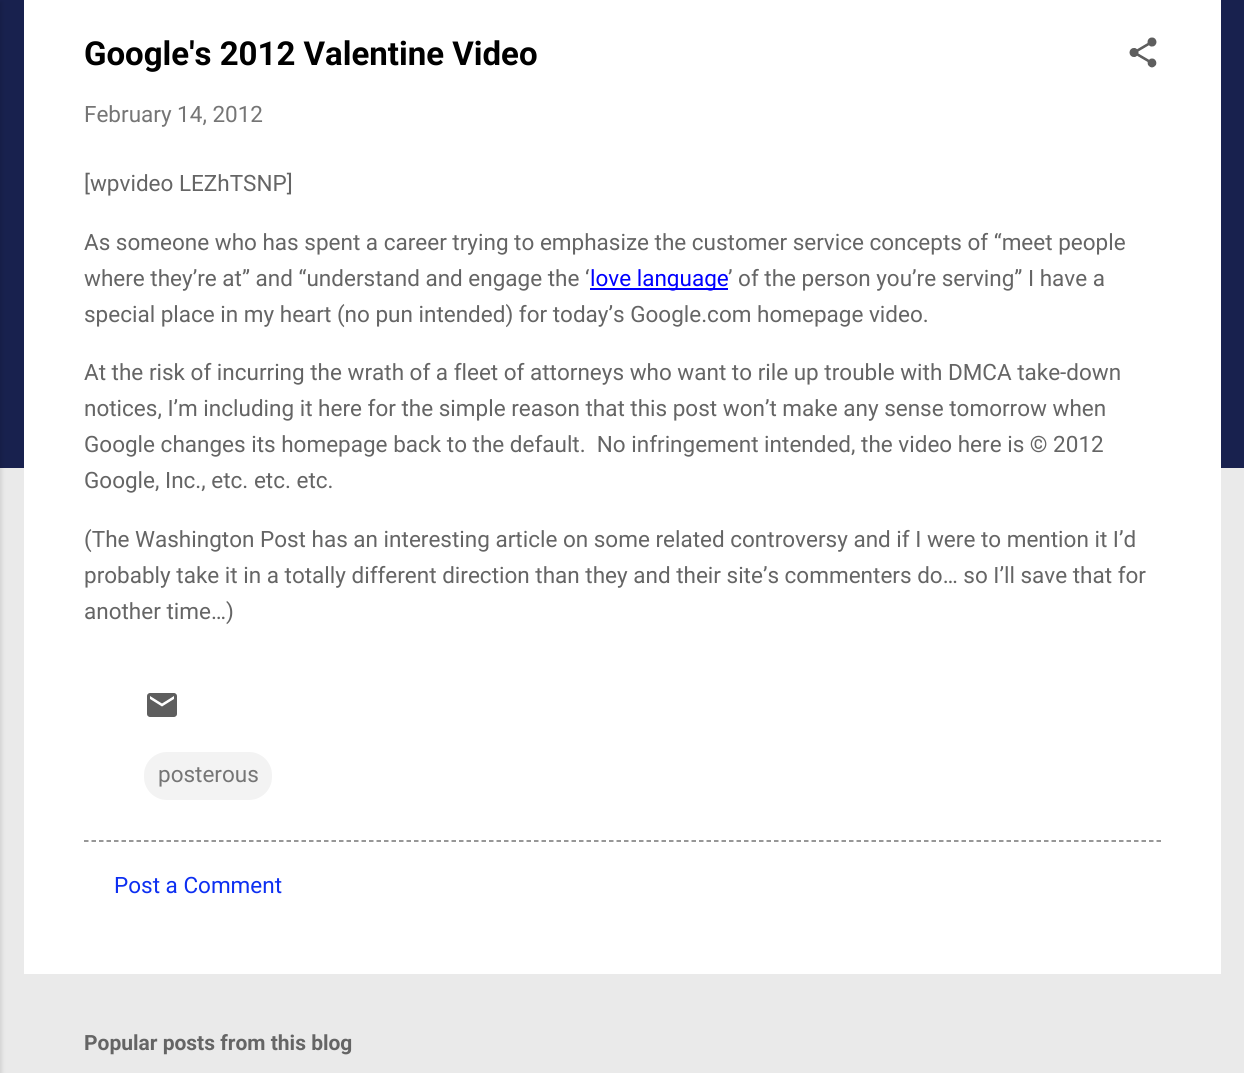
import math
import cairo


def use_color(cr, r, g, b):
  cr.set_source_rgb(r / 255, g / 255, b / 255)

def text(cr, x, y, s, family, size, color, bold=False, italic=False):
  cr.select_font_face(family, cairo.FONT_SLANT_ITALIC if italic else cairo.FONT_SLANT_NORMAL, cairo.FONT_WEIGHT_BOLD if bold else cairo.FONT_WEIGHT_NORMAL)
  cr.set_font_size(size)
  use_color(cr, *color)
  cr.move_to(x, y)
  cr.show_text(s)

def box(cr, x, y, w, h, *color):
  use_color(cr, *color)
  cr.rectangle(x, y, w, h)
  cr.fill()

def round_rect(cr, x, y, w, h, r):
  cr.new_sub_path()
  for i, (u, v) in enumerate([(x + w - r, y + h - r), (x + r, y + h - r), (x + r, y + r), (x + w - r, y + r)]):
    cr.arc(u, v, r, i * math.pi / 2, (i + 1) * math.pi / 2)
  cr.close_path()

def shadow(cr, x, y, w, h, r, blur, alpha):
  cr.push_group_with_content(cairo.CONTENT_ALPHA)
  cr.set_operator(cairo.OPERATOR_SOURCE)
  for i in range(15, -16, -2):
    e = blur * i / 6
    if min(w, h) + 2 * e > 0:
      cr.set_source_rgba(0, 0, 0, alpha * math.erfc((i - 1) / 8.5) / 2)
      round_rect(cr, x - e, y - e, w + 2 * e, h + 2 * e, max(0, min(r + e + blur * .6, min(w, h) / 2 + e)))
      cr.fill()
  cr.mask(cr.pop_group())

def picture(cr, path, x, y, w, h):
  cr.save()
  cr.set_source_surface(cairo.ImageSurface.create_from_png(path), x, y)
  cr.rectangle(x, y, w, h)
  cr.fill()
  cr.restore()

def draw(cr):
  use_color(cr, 234, 234, 234)
  cr.paint()
  box(cr, 0, 0, 1244, 468, 24, 33, 78)
  use_color(cr, 0, 0, 0)
  shadow(cr, -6, 2, 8, 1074, 0, 2, 0.1)
  box(cr, 24, 0, 1197, 974, 255, 255, 255)
  picture(cr, "img_01.png", 1129, 37, 28, 31)
  box(cr, 590, 288, 138, 2, 0, 0, 255)
  picture(cr, "img_02.png", 147, 693, 30, 24)
  use_color(cr, 243, 243, 243)
  round_rect(cr, 145, 753, 126, 46, 22)
  cr.fill_preserve()
  cr.stroke()
  cr.new_path()
  cr.move_to(84, 841)
  cr.line_to(1161, 841)
  use_color(cr, 117, 117, 117)
  cr.set_line_width(1.5)
  cr.set_dash([4.5, 3])
  cr.stroke()
  text(cr, 84, 65, "Google's 2012 Valentine Video", "Roboto", 33, (0, 0, 0), bold=True)
  text(cr, 84, 122, "February 14, 2012", "Roboto", 22.5, (117, 117, 117))
  text(cr, 84, 191, "[wpvideo LEZhTSNP]", "Roboto", 22.5, (101, 101, 101))
  text(cr, 84, 250, "As someone who has spent a career trying to emphasize the customer service concepts of “meet people", "Roboto", 22.5, (101, 101, 101))
  text(cr, 84, 286, "where they’re at” and “understand and engage the ‘", "Roboto", 22.5, (101, 101, 101))
  text(cr, 590, 286, "love language", "Roboto", 22.5, (0, 0, 255))
  text(cr, 728, 286, "’ of the person you’re serving” I have a", "Roboto", 22.5, (101, 101, 101))
  text(cr, 84, 322, "special place in my heart (no pun intended) for today’s Google.com homepage video.", "Roboto", 22.5, (101, 101, 101))
  text(cr, 84, 380, "At the risk of incurring the wrath of a fleet of attorneys who want to rile up trouble with DMCA take-down", "Roboto", 22.5, (101, 101, 101))
  text(cr, 84, 416, "notices, I’m including it here for the simple reason that this post won’t make any sense tomorrow when", "Roboto", 22.5, (101, 101, 101))
  text(cr, 84, 452, "Google changes its homepage back to the default.  No infringement intended, the video here is © 2012", "Roboto", 22.5, (101, 101, 101))
  text(cr, 84, 488, "Google, Inc., etc. etc. etc.", "Roboto", 22.5, (101, 101, 101))
  text(cr, 84, 547, "(The Washington Post has an interesting article on some related controversy and if I were to mention it I’d", "Roboto", 22.5, (101, 101, 101))
  text(cr, 84, 583, "probably take it in a totally different direction than they and their site’s commenters do… so I’ll save that for", "Roboto", 22.5, (101, 101, 101))
  text(cr, 84, 619, "another time…)", "Roboto", 22.5, (101, 101, 101))
  text(cr, 158, 782, "posterous", "Roboto", 22.5, (117, 117, 117))
  text(cr, 114, 893, "Post a Comment", "Roboto", 22.5, (13, 47, 241))
  text(cr, 84, 1050, "Popular posts from this blog", "Roboto", 21, (101, 101, 101), bold=True)


surface = cairo.ImageSurface(cairo.FORMAT_RGB24, 1244, 1073)
cr = cairo.Context(surface)
options = cairo.FontOptions()
options.set_hint_metrics(cairo.HINT_METRICS_OFF)
options.set_hint_style(cairo.HINT_STYLE_NONE)
cr.set_font_options(options)
cr.set_miter_limit(4)
draw(cr)
surface.write_to_png("out.png")
